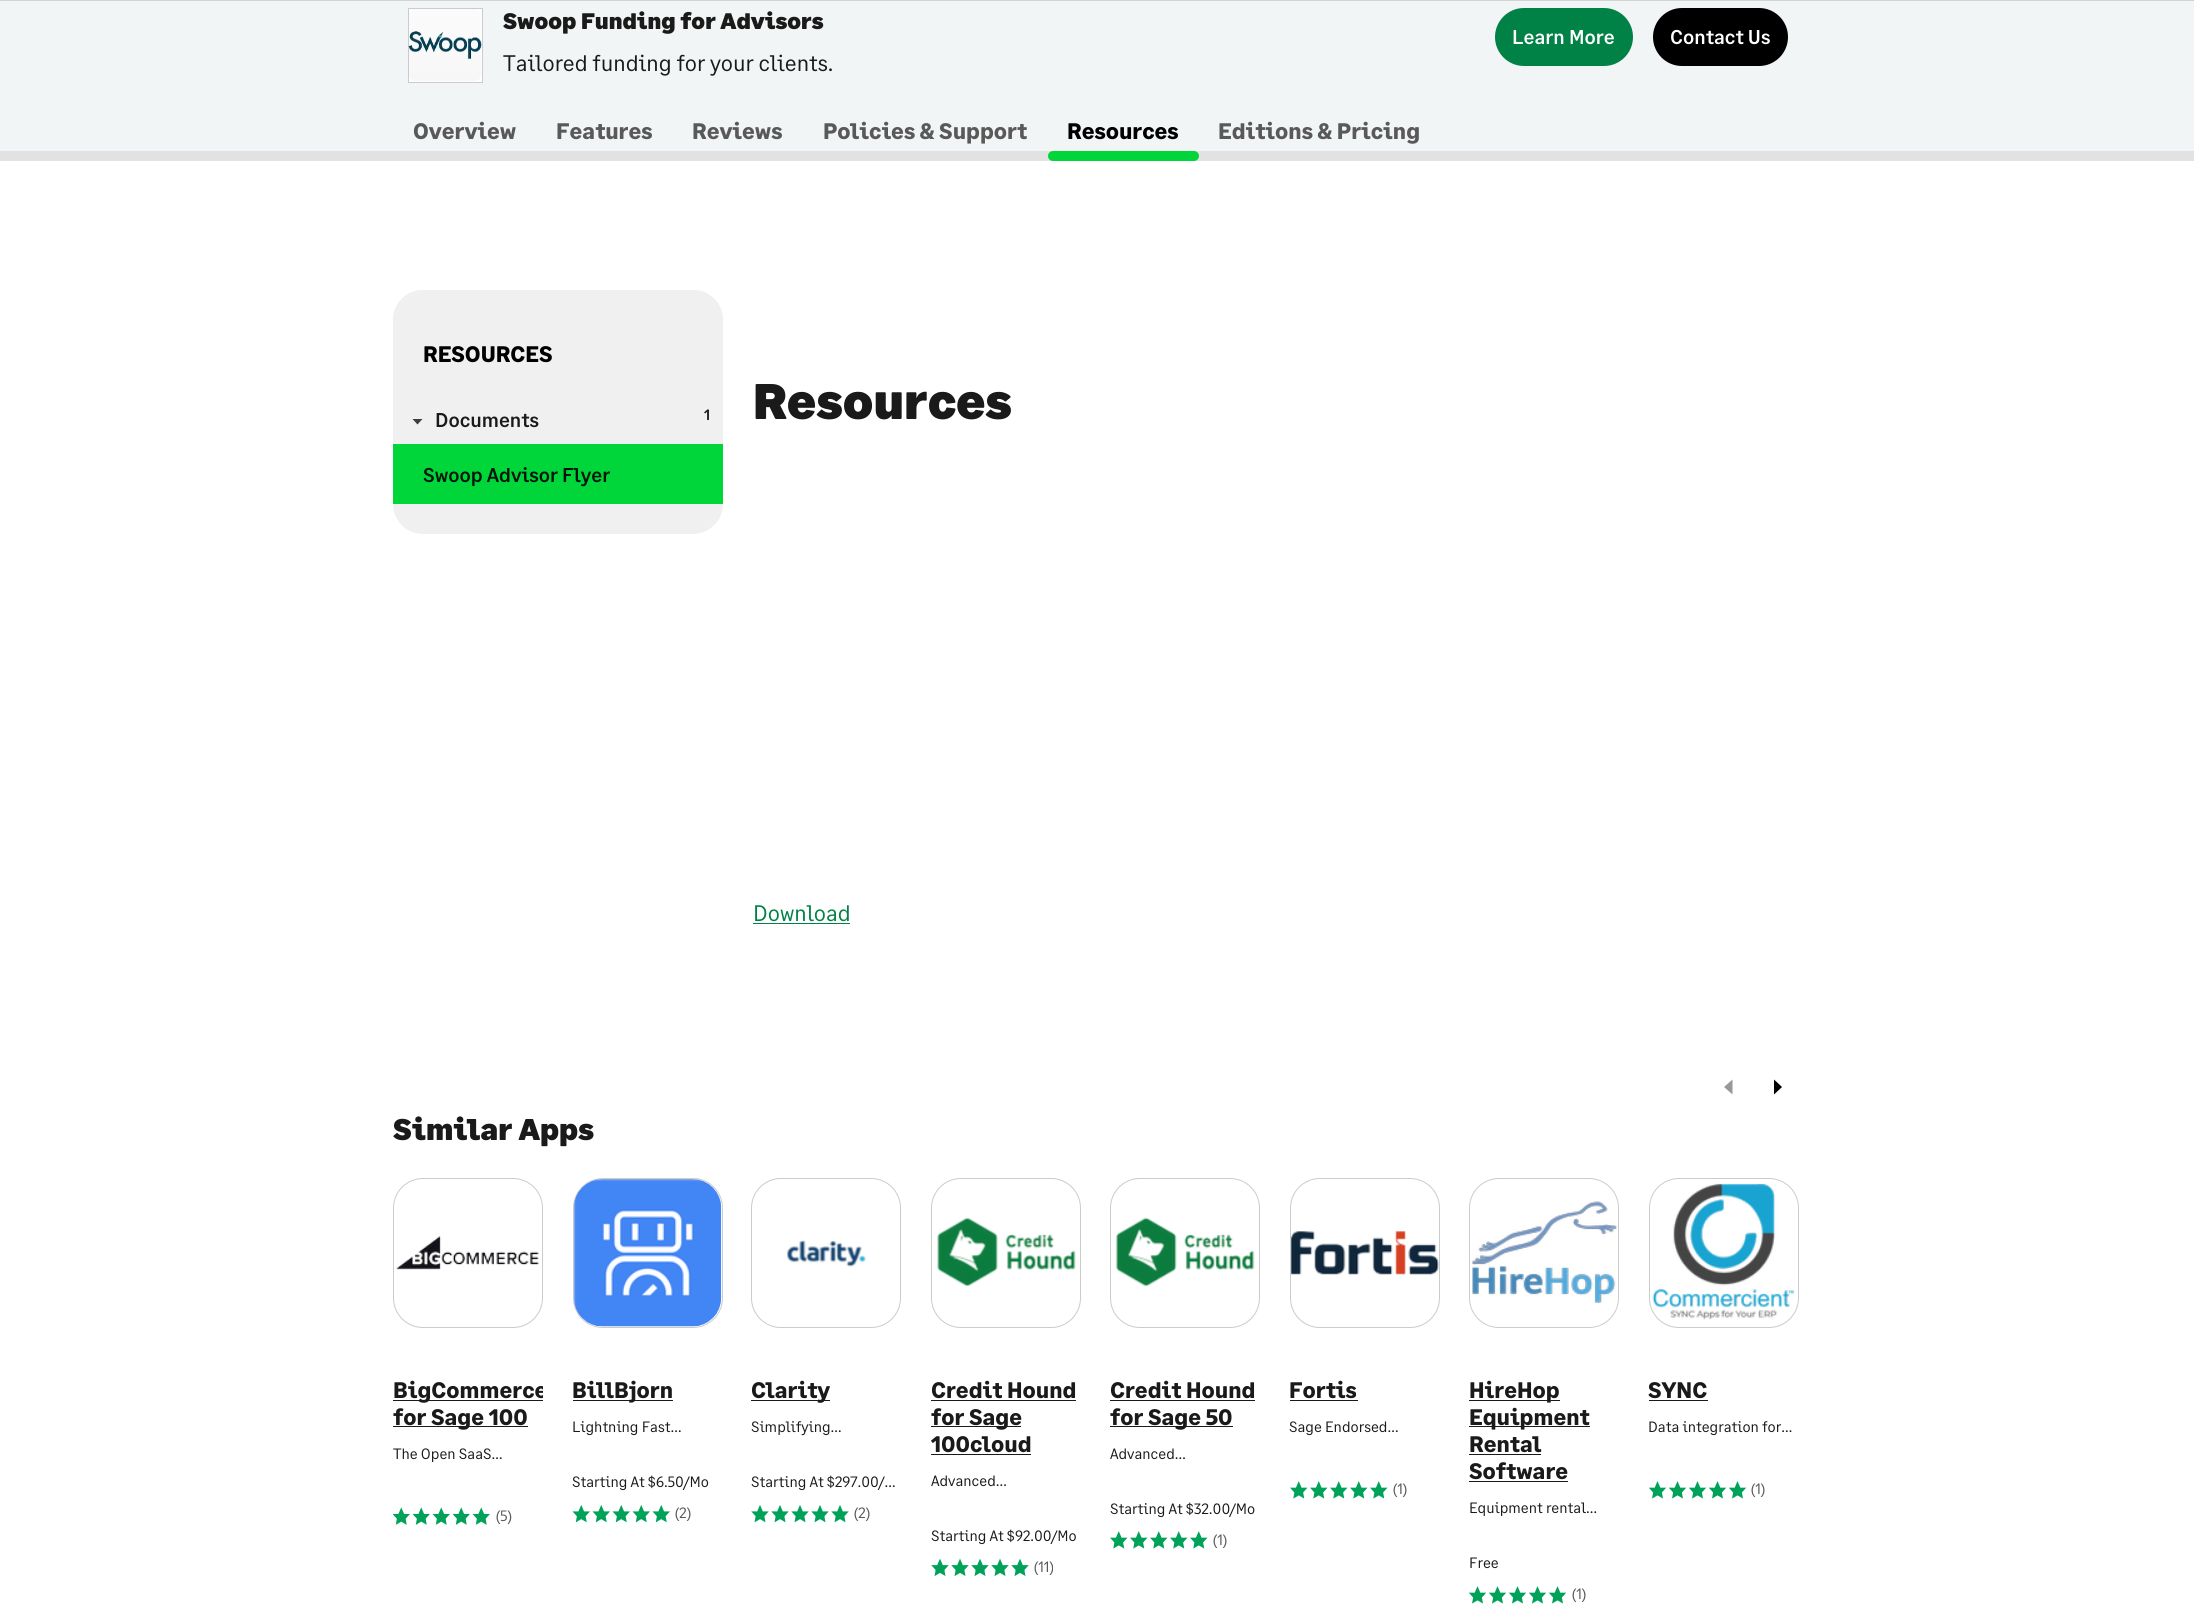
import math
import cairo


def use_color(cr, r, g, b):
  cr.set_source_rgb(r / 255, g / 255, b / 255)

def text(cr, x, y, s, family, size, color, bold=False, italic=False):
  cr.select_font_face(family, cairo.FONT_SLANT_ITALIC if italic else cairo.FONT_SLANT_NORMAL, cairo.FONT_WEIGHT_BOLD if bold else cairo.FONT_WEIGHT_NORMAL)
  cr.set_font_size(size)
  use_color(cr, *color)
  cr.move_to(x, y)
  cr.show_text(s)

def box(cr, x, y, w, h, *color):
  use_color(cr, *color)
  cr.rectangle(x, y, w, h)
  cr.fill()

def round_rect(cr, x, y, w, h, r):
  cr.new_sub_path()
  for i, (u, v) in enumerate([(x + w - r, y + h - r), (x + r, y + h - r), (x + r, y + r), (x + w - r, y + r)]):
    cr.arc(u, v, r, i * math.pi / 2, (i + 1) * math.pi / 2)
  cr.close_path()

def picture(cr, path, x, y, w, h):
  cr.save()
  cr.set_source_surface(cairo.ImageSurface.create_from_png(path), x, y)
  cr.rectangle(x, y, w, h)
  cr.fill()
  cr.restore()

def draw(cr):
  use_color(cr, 255, 255, 255)
  cr.paint()
  box(cr, 0, 1, 2194, 150, 242, 245, 245)
  box(cr, 0, 151, 2194, 10, 226, 226, 226)
  box(cr, 0, 0, 2194, 1, 211, 211, 211)
  use_color(cr, 255, 255, 255)
  cr.rectangle(408.5, 8.5, 74, 74)
  cr.fill_preserve()
  use_color(cr, 203, 203, 203)
  cr.set_line_width(1)
  cr.stroke()
  gradient = cairo.LinearGradient(445, 9, 445, 81)
  gradient.add_color_stop_rgba(0, 0.984, 0.984, 0.984, 1)
  gradient.add_color_stop_rgba(1, 0.969, 0.969, 0.969, 1)
  cr.set_source(gradient)
  round_rect(cr, 409, 9, 72, 72, 6)
  cr.fill()
  picture(cr, "img_01.png", 408, 31, 74, 28)
  use_color(cr, 0, 129, 70)
  round_rect(cr, 1496.5, 9.5, 135, 55, 27.5)
  cr.fill_preserve()
  cr.set_line_width(3)
  cr.stroke()
  use_color(cr, 0, 0, 0)
  round_rect(cr, 1654.5, 9.5, 132, 55, 27.5)
  cr.fill_preserve()
  cr.stroke()
  use_color(cr, 0, 214, 57)
  round_rect(cr, 1048, 151, 151, 10, 5)
  cr.fill()
  use_color(cr, 240, 240, 240)
  round_rect(cr, 393, 290, 330, 244, 30)
  cr.fill()
  cr.new_path()
  cr.move_to(423, 290)
  cr.line_to(693, 290)
  cr.curve_to(709.5, 290, 723, 303.5, 723, 320)
  cr.line_to(723, 394)
  cr.line_to(393, 394)
  cr.line_to(393, 320)
  cr.curve_to(393, 303.5, 406.5, 290, 423, 290)
  cr.close_path()
  cr.fill()
  use_color(cr, 62, 62, 62)
  cr.new_path()
  cr.move_to(417.5, 424.5)
  cr.line_to(412.5, 419)
  cr.line_to(422.5, 419)
  cr.close_path()
  cr.fill()
  box(cr, 393, 444, 330, 60, 0, 214, 57)
  box(cr, 753, 923, 97, 1, 0, 129, 70)
  use_color(cr, 152, 152, 152)
  cr.new_path()
  cr.move_to(1724, 1087)
  cr.line_to(1732.5, 1079.5)
  cr.line_to(1732.5, 1094.5)
  cr.close_path()
  cr.fill()
  use_color(cr, 0, 0, 0)
  cr.new_path()
  cr.move_to(1782, 1087)
  cr.line_to(1774, 1094.5)
  cr.line_to(1774, 1079.5)
  cr.close_path()
  cr.fill()
  round_rect(cr, 393.5, 1178.5, 149, 149, 29.5)
  use_color(cr, 203, 203, 203)
  cr.set_line_width(1)
  cr.stroke()
  picture(cr, "img_02.png", 396, 1236, 143, 34)
  box(cr, 393, 1400, 150, 1, 26, 26, 26)
  box(cr, 393, 1426, 135, 1, 26, 26, 26)
  picture(cr, "img_03.png", 393, 1507, 17, 18)
  picture(cr, "img_04.png", 412, 1507, 18, 18)
  picture(cr, "img_04.png", 432, 1507, 18, 18)
  picture(cr, "img_04.png", 452, 1507, 18, 18)
  picture(cr, "img_04.png", 472, 1507, 18, 18)
  round_rect(cr, 573.5, 1178.5, 149, 149, 29.5)
  use_color(cr, 203, 203, 203)
  cr.stroke()
  picture(cr, "img_05.png", 573, 1179, 149, 148)
  box(cr, 573, 1400, 100, 1, 26, 26, 26)
  picture(cr, "img_06.png", 572, 1505, 18, 18)
  picture(cr, "img_06.png", 592, 1505, 18, 18)
  picture(cr, "img_06.png", 612, 1505, 18, 18)
  picture(cr, "img_06.png", 632, 1505, 18, 18)
  picture(cr, "img_06.png", 652, 1505, 18, 18)
  round_rect(cr, 751.5, 1178.5, 149, 149, 29.5)
  use_color(cr, 203, 203, 203)
  cr.stroke()
  picture(cr, "img_07.png", 786, 1240, 80, 27)
  box(cr, 751, 1400, 79, 1, 26, 26, 26)
  picture(cr, "img_08.png", 751, 1505, 18, 18)
  picture(cr, "img_08.png", 771, 1505, 18, 18)
  picture(cr, "img_08.png", 791, 1505, 18, 18)
  picture(cr, "img_08.png", 811, 1505, 18, 18)
  picture(cr, "img_08.png", 831, 1505, 18, 18)
  round_rect(cr, 931.5, 1178.5, 149, 149, 29.5)
  use_color(cr, 203, 203, 203)
  cr.stroke()
  picture(cr, "img_09.png", 937, 1217, 139, 70)
  box(cr, 931, 1400, 145, 1, 26, 26, 26)
  box(cr, 931, 1426, 90, 1, 26, 26, 26)
  box(cr, 931, 1454, 100, 1, 26, 26, 26)
  picture(cr, "img_10.png", 931, 1558, 18, 18)
  picture(cr, "img_10.png", 951, 1558, 18, 18)
  picture(cr, "img_10.png", 971, 1558, 18, 18)
  picture(cr, "img_10.png", 991, 1558, 18, 18)
  picture(cr, "img_10.png", 1011, 1558, 18, 18)
  round_rect(cr, 1110.5, 1178.5, 149, 149, 29.5)
  use_color(cr, 203, 203, 203)
  cr.stroke()
  picture(cr, "img_11.png", 1115, 1217, 140, 70)
  box(cr, 1110, 1400, 145, 1, 26, 26, 26)
  box(cr, 1110, 1426, 123, 1, 26, 26, 26)
  picture(cr, "img_12.png", 1110, 1531, 18, 18)
  picture(cr, "img_12.png", 1130, 1531, 18, 18)
  picture(cr, "img_12.png", 1150, 1531, 18, 18)
  picture(cr, "img_12.png", 1170, 1531, 18, 18)
  picture(cr, "img_12.png", 1190, 1531, 18, 18)
  round_rect(cr, 1290.5, 1178.5, 149, 149, 29.5)
  use_color(cr, 203, 203, 203)
  cr.stroke()
  picture(cr, "img_13.png", 1291, 1231, 148, 44)
  box(cr, 1290, 1400, 68, 1, 26, 26, 26)
  picture(cr, "img_12.png", 1290, 1481, 18, 18)
  picture(cr, "img_12.png", 1310, 1481, 18, 18)
  picture(cr, "img_12.png", 1330, 1481, 18, 18)
  picture(cr, "img_12.png", 1350, 1481, 18, 18)
  picture(cr, "img_12.png", 1370, 1481, 18, 18)
  round_rect(cr, 1469.5, 1178.5, 149, 149, 29.5)
  use_color(cr, 203, 203, 203)
  cr.stroke()
  picture(cr, "img_14.png", 1471, 1201, 146, 102)
  box(cr, 1469, 1400, 91, 1, 26, 26, 26)
  box(cr, 1469, 1426, 121, 1, 26, 26, 26)
  box(cr, 1469, 1454, 72, 1, 26, 26, 26)
  box(cr, 1469, 1481, 99, 1, 26, 26, 26)
  picture(cr, "img_15.png", 1468, 1586, 19, 18)
  picture(cr, "img_15.png", 1488, 1586, 19, 18)
  picture(cr, "img_15.png", 1508, 1586, 19, 18)
  picture(cr, "img_15.png", 1528, 1586, 19, 18)
  picture(cr, "img_15.png", 1548, 1586, 19, 18)
  round_rect(cr, 1649.5, 1178.5, 149, 149, 29.5)
  use_color(cr, 203, 203, 203)
  cr.stroke()
  picture(cr, "img_16.png", 1652, 1183, 143, 137)
  box(cr, 1649, 1400, 59, 1, 26, 26, 26)
  picture(cr, "img_15.png", 1648, 1481, 19, 18)
  picture(cr, "img_15.png", 1668, 1481, 19, 18)
  picture(cr, "img_15.png", 1688, 1481, 19, 18)
  picture(cr, "img_15.png", 1708, 1481, 19, 18)
  picture(cr, "img_15.png", 1728, 1481, 19, 18)
  text(cr, 503, 29, "Swoop Funding for Advisors", "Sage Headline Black", 22.5, (26, 26, 26))
  text(cr, 503, 71, "Tailored funding for your clients.", "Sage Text", 22.5, (26, 26, 26))
  text(cr, 1512, 44, "Learn More", "Sage Text Medium", 20, (255, 255, 255))
  text(cr, 1670, 44, "Contact Us", "Sage Text Medium", 20, (255, 255, 255))
  text(cr, 413, 139, "Overview", "Sage Text", 22.5, (89, 89, 89), bold=True)
  text(cr, 556, 139, "Features", "Sage Text", 22.5, (89, 89, 89), bold=True)
  text(cr, 692, 139, "Reviews", "Sage Text", 22.5, (89, 89, 89), bold=True)
  text(cr, 823, 139, "Policies & Support", "Sage Text", 22.5, (89, 89, 89), bold=True)
  text(cr, 1067, 139, "Resources", "Sage Text", 22.5, (0, 0, 0), bold=True)
  text(cr, 1218, 139, "Editions & Pricing", "Sage Text", 22.5, (89, 89, 89), bold=True)
  text(cr, 423, 362, "RESOURCES", "Sage Text", 22.5, (0, 0, 0), bold=True)
  text(cr, 435, 427, "Documents", "Sage Text Medium", 20, (26, 26, 26))
  text(cr, 704, 420, "1", "Sage Text Medium", 15, (26, 26, 26))
  text(cr, 423, 482, "Swoop Advisor Flyer", "Sage Text Medium", 20, (0, 21, 6))
  text(cr, 753, 419, "Resources", "Sage Headline Black", 50, (26, 26, 26))
  text(cr, 753, 921, "Download", "Sage Text", 22.5, (0, 129, 70))
  text(cr, 393, 1140, "Similar Apps", "Sage Headline Black", 30, (26, 26, 26))
  cr.save()
  cr.rectangle(393, 1378, 150, 53)
  cr.clip()
  text(cr, 393, 1398, "BigCommerce", "Sage Text", 22.5, (26, 26, 26), bold=True)
  cr.restore()
  text(cr, 393, 1425, "for Sage 100", "Sage Text", 22.5, (26, 26, 26), bold=True)
  text(cr, 393, 1459, "The Open SaaS…", "Sage Text", 15, (26, 26, 26))
  text(cr, 496, 1521, "(5)", "Sage Text", 15, (89, 89, 89))
  text(cr, 572, 1398, "BillBjorn", "Sage Text", 22.5, (26, 26, 26), bold=True)
  text(cr, 572, 1432, "Lightning Fast…", "Sage Text", 15, (26, 26, 26))
  text(cr, 572, 1487, "Starting At $6.50/Mo", "Sage Text", 15, (26, 26, 26))
  text(cr, 675, 1518, "(2)", "Sage Text", 15, (89, 89, 89))
  text(cr, 751, 1398, "Clarity", "Sage Text", 22.5, (26, 26, 26), bold=True)
  text(cr, 751, 1432, "Simplifying…", "Sage Text", 15, (26, 26, 26))
  text(cr, 751, 1487, "Starting At $297.00/…", "Sage Text", 15, (26, 26, 26))
  text(cr, 854, 1518, "(2)", "Sage Text", 15, (89, 89, 89))
  text(cr, 931, 1398, "Credit Hound", "Sage Text", 22.5, (26, 26, 26), bold=True)
  text(cr, 931, 1425, "for Sage", "Sage Text", 22.5, (26, 26, 26), bold=True)
  text(cr, 931, 1452, "100cloud", "Sage Text", 22.5, (26, 26, 26), bold=True)
  text(cr, 931, 1486, "Advanced…", "Sage Text", 15, (26, 26, 26))
  text(cr, 931, 1541, "Starting At $92.00/Mo", "Sage Text", 15, (26, 26, 26))
  text(cr, 1034, 1572, "(11)", "Sage Text", 15, (89, 89, 89))
  text(cr, 1110, 1398, "Credit Hound", "Sage Text", 22.5, (26, 26, 26), bold=True)
  text(cr, 1110, 1425, "for Sage 50", "Sage Text", 22.5, (26, 26, 26), bold=True)
  text(cr, 1110, 1459, "Advanced…", "Sage Text", 15, (26, 26, 26))
  text(cr, 1110, 1514, "Starting At $32.00/Mo", "Sage Text", 15, (26, 26, 26))
  text(cr, 1213, 1545, "(1)", "Sage Text", 15, (89, 89, 89))
  text(cr, 1289, 1398, "Fortis", "Sage Text", 22.5, (26, 26, 26), bold=True)
  text(cr, 1289, 1432, "Sage Endorsed…", "Sage Text", 15, (26, 26, 26))
  text(cr, 1393, 1494, "(1)", "Sage Text", 15, (89, 89, 89))
  text(cr, 1469, 1398, "HireHop", "Sage Text", 22.5, (26, 26, 26), bold=True)
  text(cr, 1469, 1425, "Equipment", "Sage Text", 22.5, (26, 26, 26), bold=True)
  text(cr, 1469, 1452, "Rental", "Sage Text", 22.5, (26, 26, 26), bold=True)
  text(cr, 1469, 1479, "Software", "Sage Text", 22.5, (26, 26, 26), bold=True)
  text(cr, 1469, 1513, "Equipment rental…", "Sage Text", 15, (26, 26, 26))
  text(cr, 1469, 1568, "Free", "Sage Text", 15, (26, 26, 26))
  text(cr, 1572, 1599, "(1)", "Sage Text", 15, (89, 89, 89))
  text(cr, 1648, 1398, "SYNC", "Sage Text", 22.5, (26, 26, 26), bold=True)
  text(cr, 1648, 1432, "Data integration for…", "Sage Text", 15, (26, 26, 26))
  text(cr, 1751, 1494, "(1)", "Sage Text", 15, (89, 89, 89))


surface = cairo.ImageSurface(cairo.FORMAT_RGB24, 2194, 1616)
cr = cairo.Context(surface)
options = cairo.FontOptions()
options.set_hint_metrics(cairo.HINT_METRICS_OFF)
options.set_hint_style(cairo.HINT_STYLE_NONE)
cr.set_font_options(options)
cr.set_miter_limit(4)
draw(cr)
surface.write_to_png("out.png")
